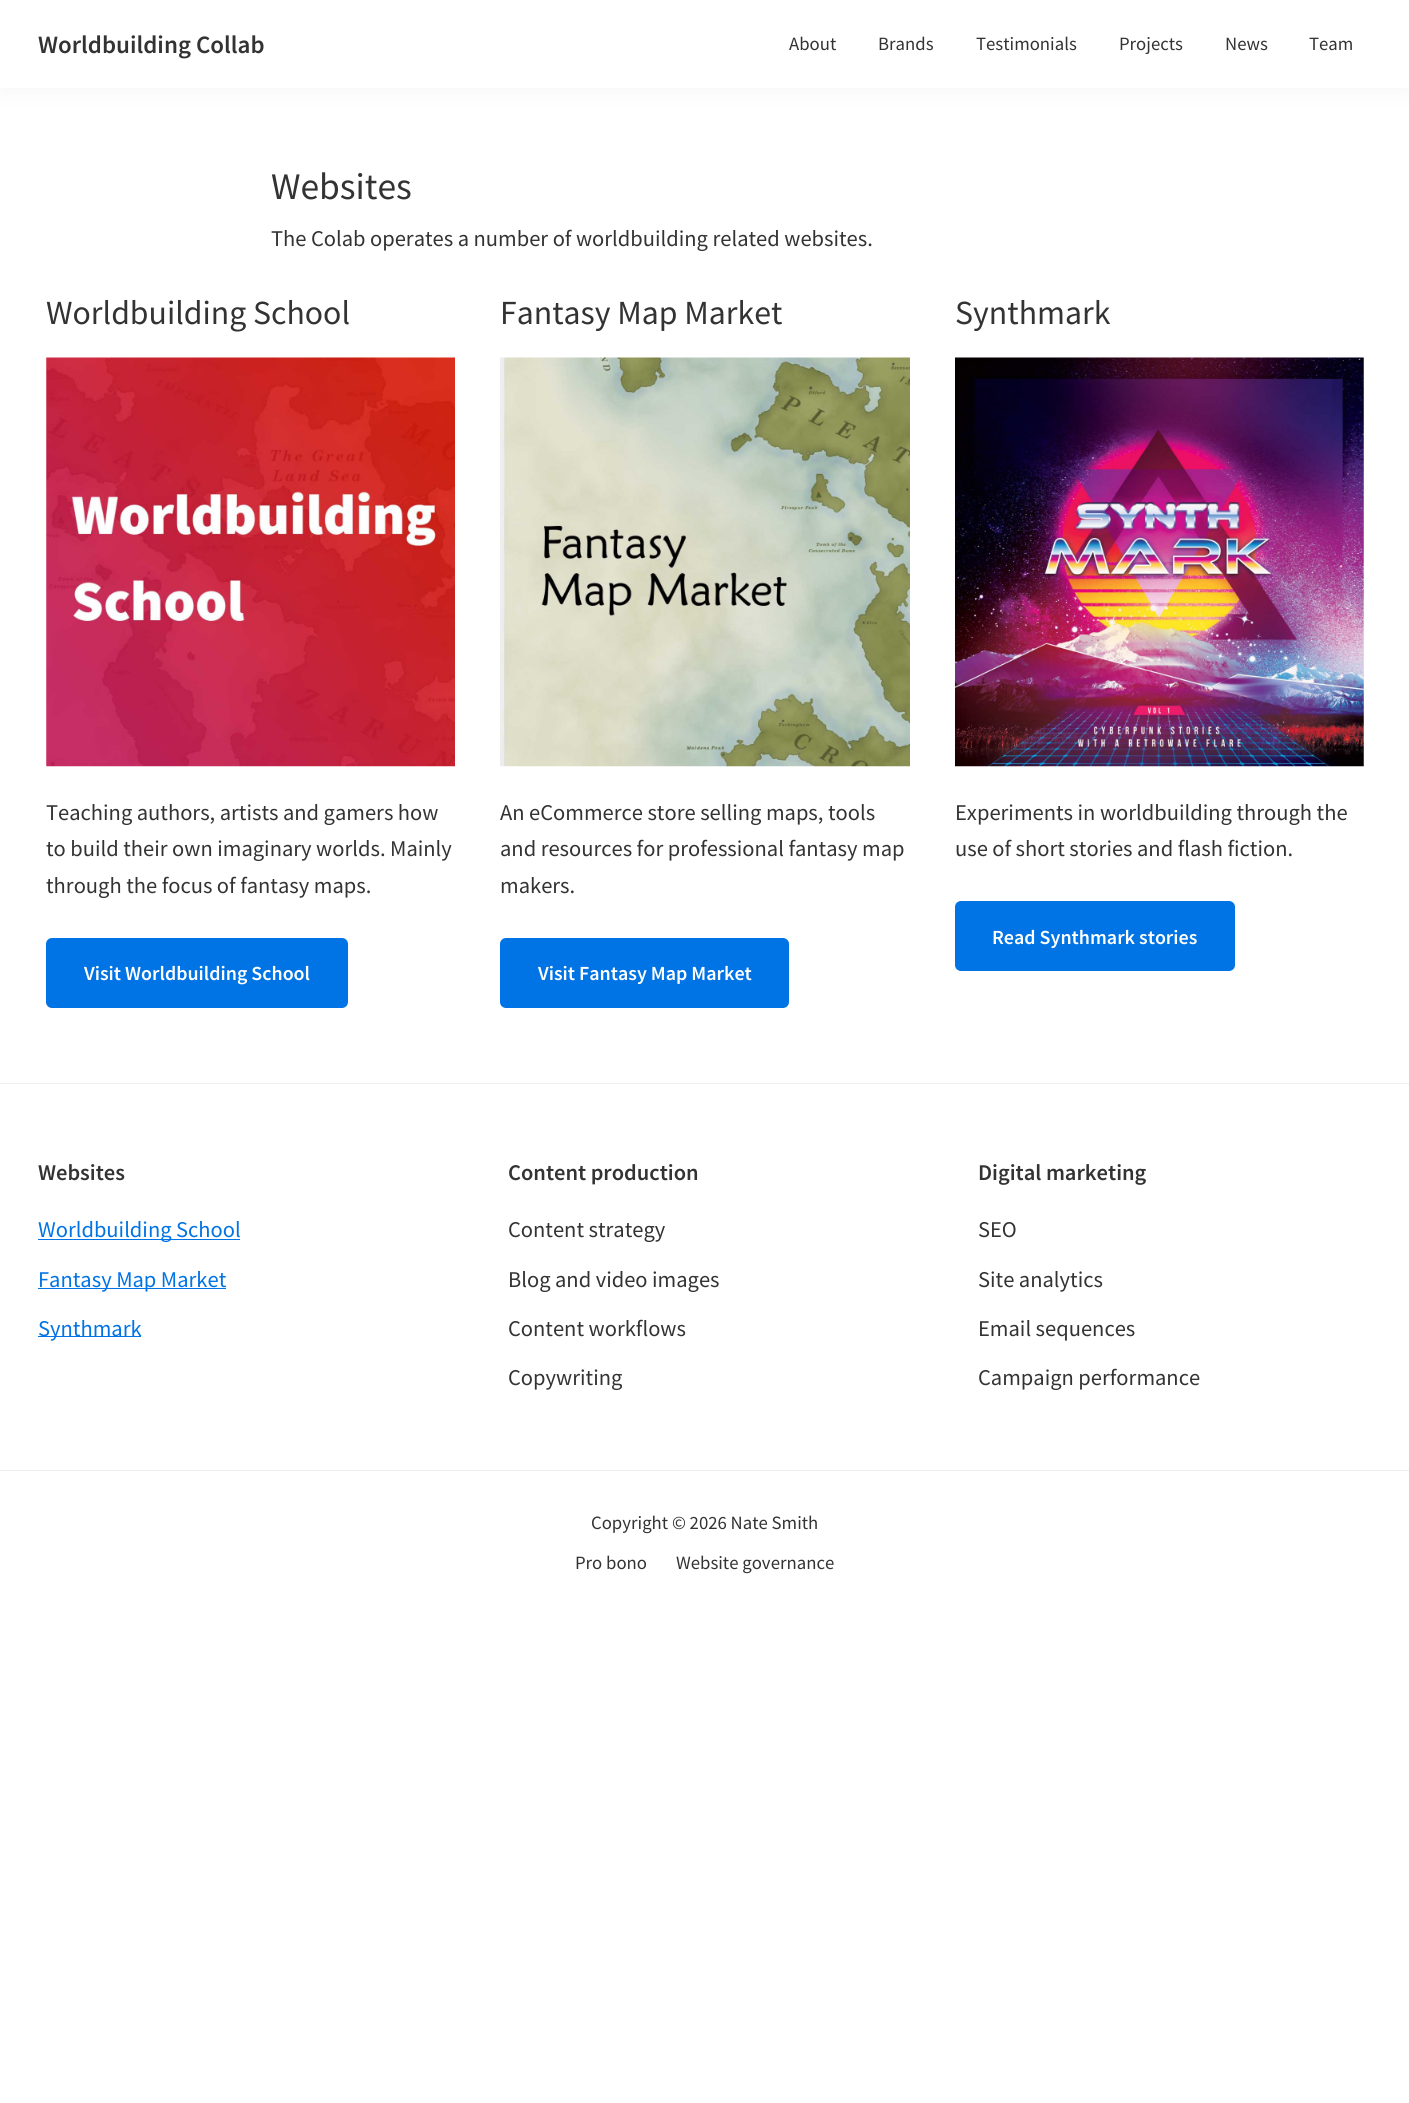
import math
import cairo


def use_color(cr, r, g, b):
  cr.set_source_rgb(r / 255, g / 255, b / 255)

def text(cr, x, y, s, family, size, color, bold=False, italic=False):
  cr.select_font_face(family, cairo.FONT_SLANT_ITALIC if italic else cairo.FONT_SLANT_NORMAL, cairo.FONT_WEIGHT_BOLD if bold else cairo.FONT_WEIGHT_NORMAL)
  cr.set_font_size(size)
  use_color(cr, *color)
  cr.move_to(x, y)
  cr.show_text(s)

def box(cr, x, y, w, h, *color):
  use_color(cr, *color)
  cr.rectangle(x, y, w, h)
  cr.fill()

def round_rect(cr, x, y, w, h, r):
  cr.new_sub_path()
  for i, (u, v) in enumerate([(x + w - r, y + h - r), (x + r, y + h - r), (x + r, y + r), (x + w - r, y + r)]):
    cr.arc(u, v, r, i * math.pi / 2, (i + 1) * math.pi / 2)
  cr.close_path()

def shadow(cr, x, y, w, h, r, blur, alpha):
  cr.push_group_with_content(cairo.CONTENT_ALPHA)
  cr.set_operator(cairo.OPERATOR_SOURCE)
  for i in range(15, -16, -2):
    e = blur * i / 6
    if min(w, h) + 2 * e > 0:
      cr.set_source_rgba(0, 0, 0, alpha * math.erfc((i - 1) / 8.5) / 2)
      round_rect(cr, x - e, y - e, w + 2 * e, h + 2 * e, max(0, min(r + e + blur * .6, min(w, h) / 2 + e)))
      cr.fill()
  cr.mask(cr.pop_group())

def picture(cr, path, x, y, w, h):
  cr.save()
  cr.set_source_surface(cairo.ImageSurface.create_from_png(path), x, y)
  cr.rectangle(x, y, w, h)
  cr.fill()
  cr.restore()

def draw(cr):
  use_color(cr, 255, 255, 255)
  cr.paint()
  use_color(cr, 0, 0, 0)
  shadow(cr, 0, 0, 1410, 88, 0, 12.5, 0.05)
  box(cr, 0, 0, 1409, 88, 255, 255, 255)
  picture(cr, "img_01.png", 46, 357, 409, 410)
  use_color(cr, 0, 115, 229)
  round_rect(cr, 46, 938, 302, 70, 6)
  cr.fill()
  picture(cr, "img_02.png", 500, 357, 410, 410)
  round_rect(cr, 500, 938, 289, 70, 6)
  cr.fill()
  picture(cr, "img_03.png", 955, 357, 409, 410)
  round_rect(cr, 955, 901, 280, 70, 6)
  cr.fill()
  box(cr, 0, 1083, 1409, 1, 238, 238, 238)
  box(cr, 38, 1239, 202, 1, 0, 115, 229)
  box(cr, 38, 1288, 188, 1, 0, 115, 229)
  box(cr, 38, 1336, 103, 1, 0, 115, 229)
  box(cr, 0, 1470, 1409, 1, 238, 238, 238)
  text(cr, 38, 53, "Worldbuilding Collab", "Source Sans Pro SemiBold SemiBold", 25, (51, 51, 51))
  text(cr, 789, 50, "About", "Source Sans Pro", 18.75, (51, 51, 51))
  text(cr, 878, 50, "Brands", "Source Sans Pro", 18.75, (51, 51, 51))
  text(cr, 976, 50, "Testimonials", "Source Sans Pro", 18.75, (51, 51, 51))
  text(cr, 1119, 50, "Projects", "Source Sans Pro", 18.75, (51, 51, 51))
  text(cr, 1225, 50, "News", "Source Sans Pro", 18.75, (51, 51, 51))
  text(cr, 1309, 50, "Team", "Source Sans Pro", 18.75, (51, 51, 51))
  text(cr, 271, 199, "Websites", "Source Sans Pro", 37.5, (51, 51, 51))
  text(cr, 271, 246, "The Colab operates a number of worldbuilding related websites.", "Source Sans Pro", 22.5, (51, 51, 51))
  text(cr, 46, 324, "Worldbuilding School", "Source Sans Pro", 33.75, (51, 51, 51))
  text(cr, 46, 820, "Teaching authors, artists and gamers how", "Source Sans Pro", 22.5, (51, 51, 51))
  text(cr, 46, 856, "to build their own imaginary worlds. Mainly", "Source Sans Pro", 22.5, (51, 51, 51))
  text(cr, 46, 893, "through the focus of fantasy maps.", "Source Sans Pro", 22.5, (51, 51, 51))
  text(cr, 84, 980, "Visit Worldbuilding School", "Source Sans Pro SemiBold SemiBold", 20, (255, 255, 255))
  text(cr, 500, 324, "Fantasy Map Market", "Source Sans Pro", 33.75, (51, 51, 51))
  text(cr, 500, 820, "An eCommerce store selling maps, tools", "Source Sans Pro", 22.5, (51, 51, 51))
  text(cr, 500, 856, "and resources for professional fantasy map", "Source Sans Pro", 22.5, (51, 51, 51))
  text(cr, 500, 893, "makers.", "Source Sans Pro", 22.5, (51, 51, 51))
  text(cr, 538, 980, "Visit Fantasy Map Market", "Source Sans Pro SemiBold SemiBold", 20, (255, 255, 255))
  text(cr, 955, 324, "Synthmark", "Source Sans Pro", 33.75, (51, 51, 51))
  text(cr, 955, 820, "Experiments in worldbuilding through the", "Source Sans Pro", 22.5, (51, 51, 51))
  text(cr, 955, 856, "use of short stories and flash fiction.", "Source Sans Pro", 22.5, (51, 51, 51))
  text(cr, 992, 944, "Read Synthmark stories", "Source Sans Pro SemiBold SemiBold", 20, (255, 255, 255))
  text(cr, 38, 1180, "Websites", "Source Sans Pro SemiBold SemiBold", 22.5, (51, 51, 51))
  text(cr, 38, 1237, "Worldbuilding School", "Source Sans Pro", 22.5, (0, 115, 229))
  text(cr, 38, 1287, "Fantasy Map Market", "Source Sans Pro", 22.5, (0, 115, 229))
  text(cr, 38, 1336, "Synthmark", "Source Sans Pro", 22.5, (0, 115, 229))
  text(cr, 508, 1180, "Content production", "Source Sans Pro SemiBold SemiBold", 22.5, (51, 51, 51))
  text(cr, 508, 1237, "Content strategy", "Source Sans Pro", 22.5, (51, 51, 51))
  text(cr, 508, 1287, "Blog and video images", "Source Sans Pro", 22.5, (51, 51, 51))
  text(cr, 508, 1336, "Content workflows", "Source Sans Pro", 22.5, (51, 51, 51))
  text(cr, 508, 1385, "Copywriting", "Source Sans Pro", 22.5, (51, 51, 51))
  text(cr, 978, 1180, "Digital marketing", "Source Sans Pro SemiBold SemiBold", 22.5, (51, 51, 51))
  text(cr, 978, 1237, "SEO", "Source Sans Pro", 22.5, (51, 51, 51))
  text(cr, 978, 1287, "Site analytics", "Source Sans Pro", 22.5, (51, 51, 51))
  text(cr, 978, 1336, "Email sequences", "Source Sans Pro", 22.5, (51, 51, 51))
  text(cr, 978, 1385, "Campaign performance", "Source Sans Pro", 22.5, (51, 51, 51))
  text(cr, 591, 1529, "Copyright © 2026 Nate Smith", "Source Sans Pro", 18.75, (51, 51, 51))
  text(cr, 575, 1569, "Pro bono", "Source Sans Pro", 18.75, (51, 51, 51))
  text(cr, 676, 1569, "Website governance", "Source Sans Pro", 18.75, (51, 51, 51))


surface = cairo.ImageSurface(cairo.FORMAT_RGB24, 1409, 2103)
cr = cairo.Context(surface)
options = cairo.FontOptions()
options.set_hint_metrics(cairo.HINT_METRICS_OFF)
options.set_hint_style(cairo.HINT_STYLE_NONE)
cr.set_font_options(options)
cr.set_miter_limit(4)
draw(cr)
surface.write_to_png("out.png")
